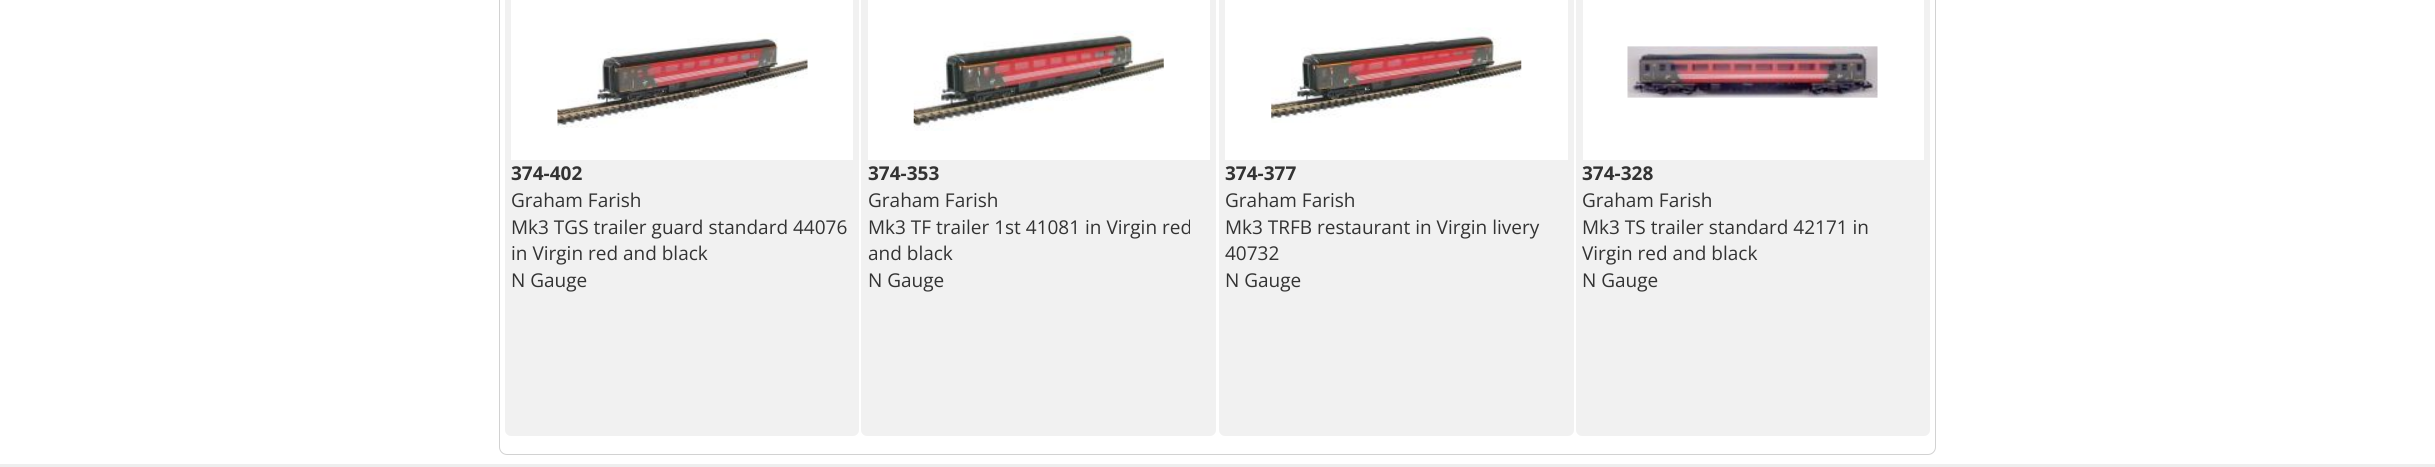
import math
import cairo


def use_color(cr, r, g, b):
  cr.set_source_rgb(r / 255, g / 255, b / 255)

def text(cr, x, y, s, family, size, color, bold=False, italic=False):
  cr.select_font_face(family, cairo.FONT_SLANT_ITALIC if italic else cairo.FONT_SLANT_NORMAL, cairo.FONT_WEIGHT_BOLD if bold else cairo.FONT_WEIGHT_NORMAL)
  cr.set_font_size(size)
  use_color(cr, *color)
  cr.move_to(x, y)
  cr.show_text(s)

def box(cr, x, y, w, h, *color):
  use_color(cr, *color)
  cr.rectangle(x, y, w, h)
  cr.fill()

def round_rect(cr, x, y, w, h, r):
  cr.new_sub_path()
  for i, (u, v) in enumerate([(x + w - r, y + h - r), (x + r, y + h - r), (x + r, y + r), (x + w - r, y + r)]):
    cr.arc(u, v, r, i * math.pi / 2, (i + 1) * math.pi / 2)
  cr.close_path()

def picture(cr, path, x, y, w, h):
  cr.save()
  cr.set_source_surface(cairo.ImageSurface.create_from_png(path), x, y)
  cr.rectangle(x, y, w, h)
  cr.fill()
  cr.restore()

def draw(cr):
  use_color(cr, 255, 255, 255)
  cr.paint()
  round_rect(cr, 499.5, -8.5, 1436, 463, 7.5)
  use_color(cr, 210, 210, 210)
  cr.set_line_width(1)
  cr.stroke()
  use_color(cr, 241, 241, 241)
  round_rect(cr, 505, -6, 354, 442, 6)
  cr.fill()
  box(cr, 511, 0, 342, 160, 255, 255, 255)
  picture(cr, "img_01.png", 557, 33, 251, 95)
  use_color(cr, 241, 241, 241)
  round_rect(cr, 861, -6, 355, 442, 6)
  cr.fill()
  box(cr, 868, 0, 342, 160, 255, 255, 255)
  picture(cr, "img_02.png", 913, 30, 251, 101)
  use_color(cr, 241, 241, 241)
  round_rect(cr, 1219, -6, 355, 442, 6)
  cr.fill()
  box(cr, 1225, 0, 343, 160, 255, 255, 255)
  picture(cr, "img_03.png", 1271, 27, 251, 96)
  use_color(cr, 241, 241, 241)
  round_rect(cr, 1576, -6, 354, 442, 6)
  cr.fill()
  box(cr, 1583, 0, 341, 160, 255, 255, 255)
  picture(cr, "img_04.png", 1627, 46, 251, 52)
  box(cr, 0, 464, 2435, 3, 238, 238, 238)
  text(cr, 511, 180, "374-402", "Open Sans", 19, (51, 51, 51), bold=True)
  text(cr, 511, 207, "Graham Farish", "Open Sans", 19, (51, 51, 51))
  text(cr, 511, 234, "Mk3 TGS trailer guard standard 44076", "Open Sans", 19, (51, 51, 51))
  text(cr, 511, 260, "in Virgin red and black", "Open Sans", 19, (51, 51, 51))
  text(cr, 511, 287, "N Gauge", "Open Sans", 19, (51, 51, 51))
  text(cr, 868, 180, "374-353", "Open Sans", 19, (51, 51, 51), bold=True)
  text(cr, 868, 207, "Graham Farish", "Open Sans", 19, (51, 51, 51))
  text(cr, 868, 234, "Mk3 TF trailer 1st 41081 in Virgin red", "Open Sans", 19, (51, 51, 51))
  text(cr, 868, 260, "and black", "Open Sans", 19, (51, 51, 51))
  text(cr, 868, 287, "N Gauge", "Open Sans", 19, (51, 51, 51))
  text(cr, 1225, 180, "374-377", "Open Sans", 19, (51, 51, 51), bold=True)
  text(cr, 1225, 207, "Graham Farish", "Open Sans", 19, (51, 51, 51))
  text(cr, 1225, 234, "Mk3 TRFB restaurant in Virgin livery", "Open Sans", 19, (51, 51, 51))
  text(cr, 1225, 260, "40732", "Open Sans", 19, (51, 51, 51))
  text(cr, 1225, 287, "N Gauge", "Open Sans", 19, (51, 51, 51))
  text(cr, 1582, 180, "374-328", "Open Sans", 19, (51, 51, 51), bold=True)
  text(cr, 1582, 207, "Graham Farish", "Open Sans", 19, (51, 51, 51))
  text(cr, 1582, 234, "Mk3 TS trailer standard 42171 in", "Open Sans", 19, (51, 51, 51))
  text(cr, 1582, 260, "Virgin red and black", "Open Sans", 19, (51, 51, 51))
  text(cr, 1582, 287, "N Gauge", "Open Sans", 19, (51, 51, 51))


surface = cairo.ImageSurface(cairo.FORMAT_RGB24, 2435, 467)
cr = cairo.Context(surface)
options = cairo.FontOptions()
options.set_hint_metrics(cairo.HINT_METRICS_OFF)
options.set_hint_style(cairo.HINT_STYLE_NONE)
cr.set_font_options(options)
cr.set_miter_limit(4)
draw(cr)
surface.write_to_png("out.png")
